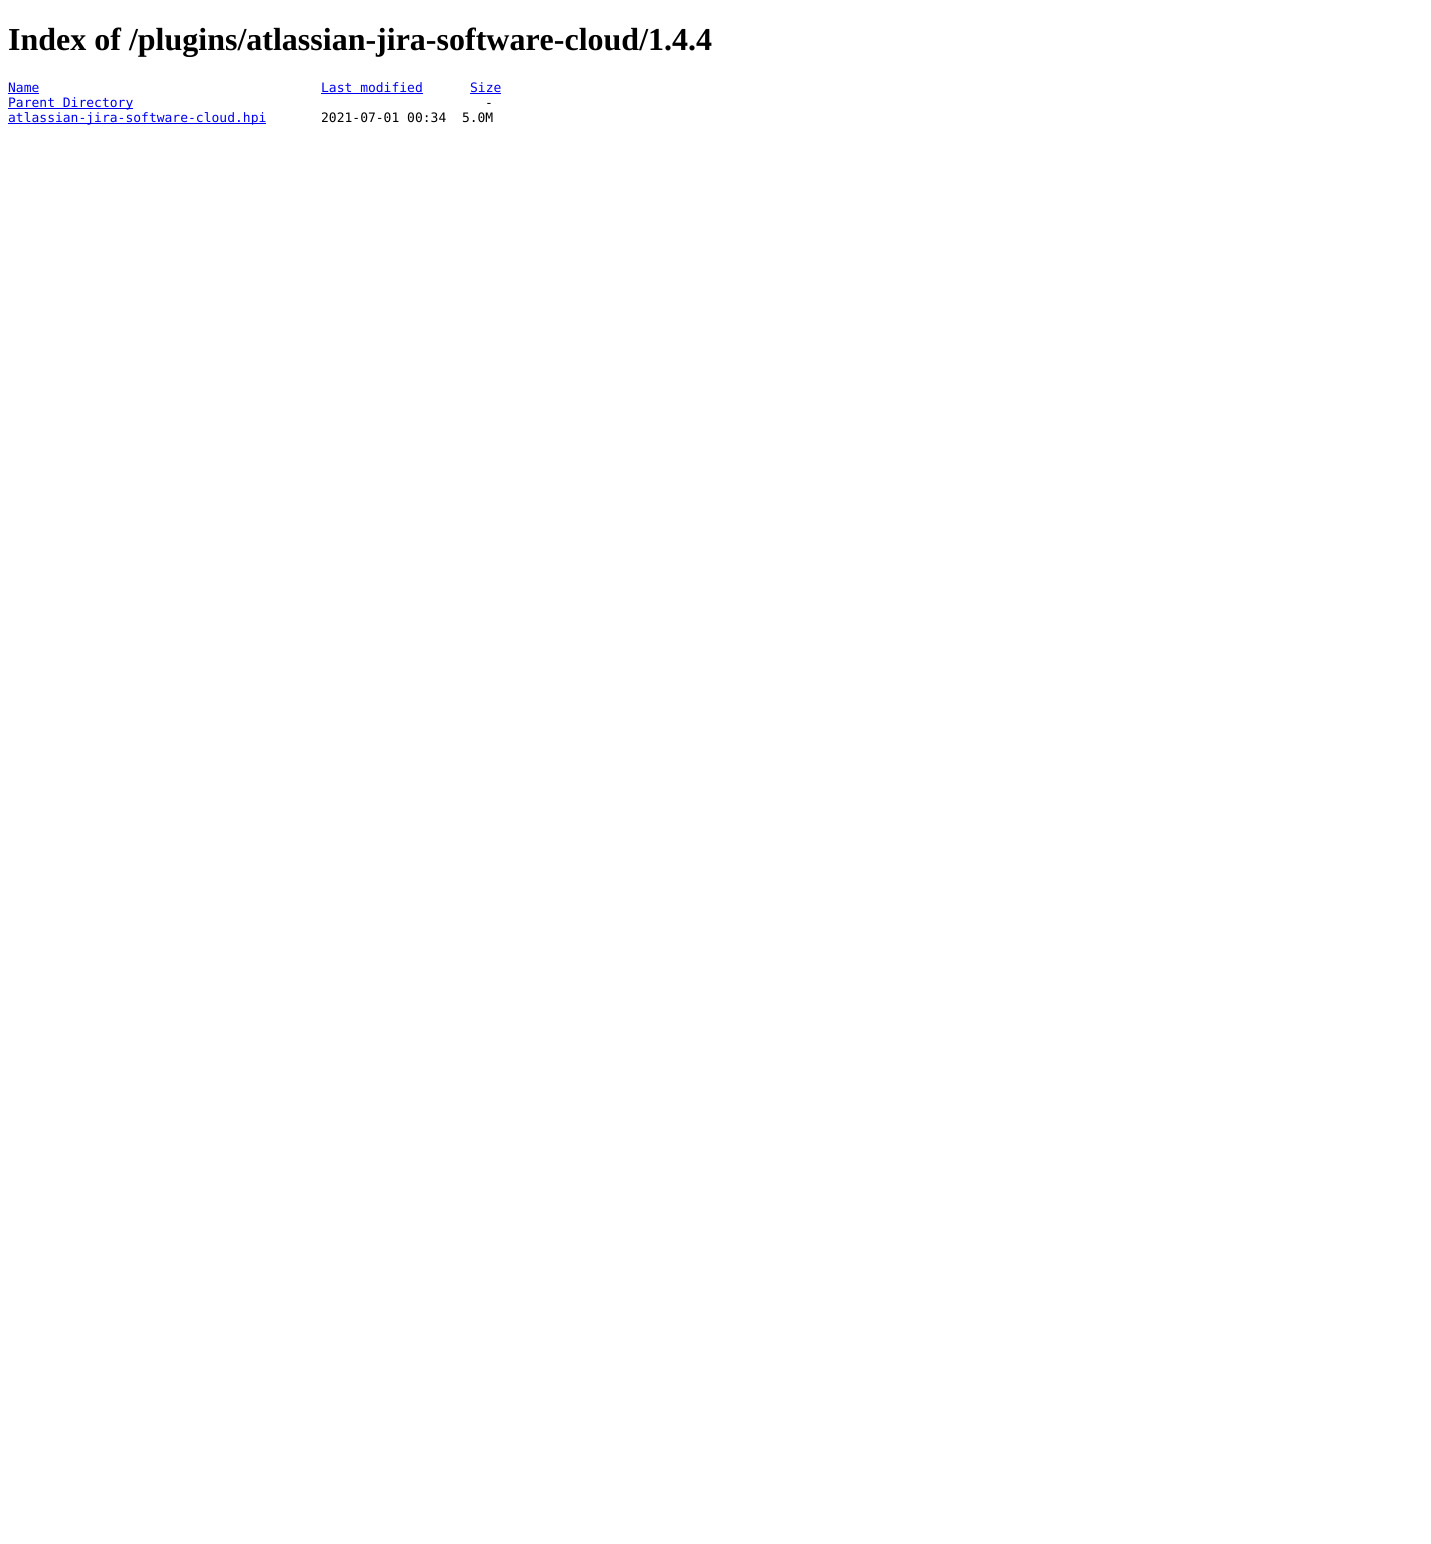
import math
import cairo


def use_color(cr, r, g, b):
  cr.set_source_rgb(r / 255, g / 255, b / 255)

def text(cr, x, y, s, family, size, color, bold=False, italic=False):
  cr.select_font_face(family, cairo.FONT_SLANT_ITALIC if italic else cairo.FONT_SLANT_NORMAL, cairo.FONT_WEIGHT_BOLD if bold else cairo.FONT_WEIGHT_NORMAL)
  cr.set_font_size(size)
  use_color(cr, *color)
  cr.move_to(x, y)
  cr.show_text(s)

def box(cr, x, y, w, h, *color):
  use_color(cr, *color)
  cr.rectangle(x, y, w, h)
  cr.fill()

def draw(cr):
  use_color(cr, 255, 255, 255)
  cr.paint()
  box(cr, 8, 93, 31, 1, 0, 0, 238)
  box(cr, 321, 93, 102, 1, 0, 0, 238)
  box(cr, 470, 93, 31, 1, 0, 0, 238)
  box(cr, 8, 108, 125, 1, 0, 0, 238)
  box(cr, 8, 123, 258, 1, 0, 0, 238)
  text(cr, 8, 50, "Index of /plugins/atlassian-jira-software-cloud/1.4.4", "Liberation Serif", 32, (0, 0, 0), bold=True)
  text(cr, 8, 92, "Name", "DejaVu Sans Mono", 13, (0, 0, 238))
  text(cr, 321, 92, "Last modified", "DejaVu Sans Mono", 13, (0, 0, 238))
  text(cr, 470, 92, "Size", "DejaVu Sans Mono", 13, (0, 0, 238))
  text(cr, 8, 107, "Parent Directory", "DejaVu Sans Mono", 13, (0, 0, 238))
  text(cr, 485, 107, "-", "DejaVu Sans Mono", 13, (0, 0, 0))
  text(cr, 8, 122, "atlassian-jira-software-cloud.hpi", "DejaVu Sans Mono", 13, (0, 0, 238))
  text(cr, 321, 122, "2021-07-01 00:34  5.0M", "DejaVu Sans Mono", 13, (0, 0, 0))


surface = cairo.ImageSurface(cairo.FORMAT_RGB24, 1431, 1544)
cr = cairo.Context(surface)
options = cairo.FontOptions()
options.set_hint_metrics(cairo.HINT_METRICS_OFF)
options.set_hint_style(cairo.HINT_STYLE_NONE)
cr.set_font_options(options)
cr.set_miter_limit(4)
draw(cr)
surface.write_to_png("out.png")
